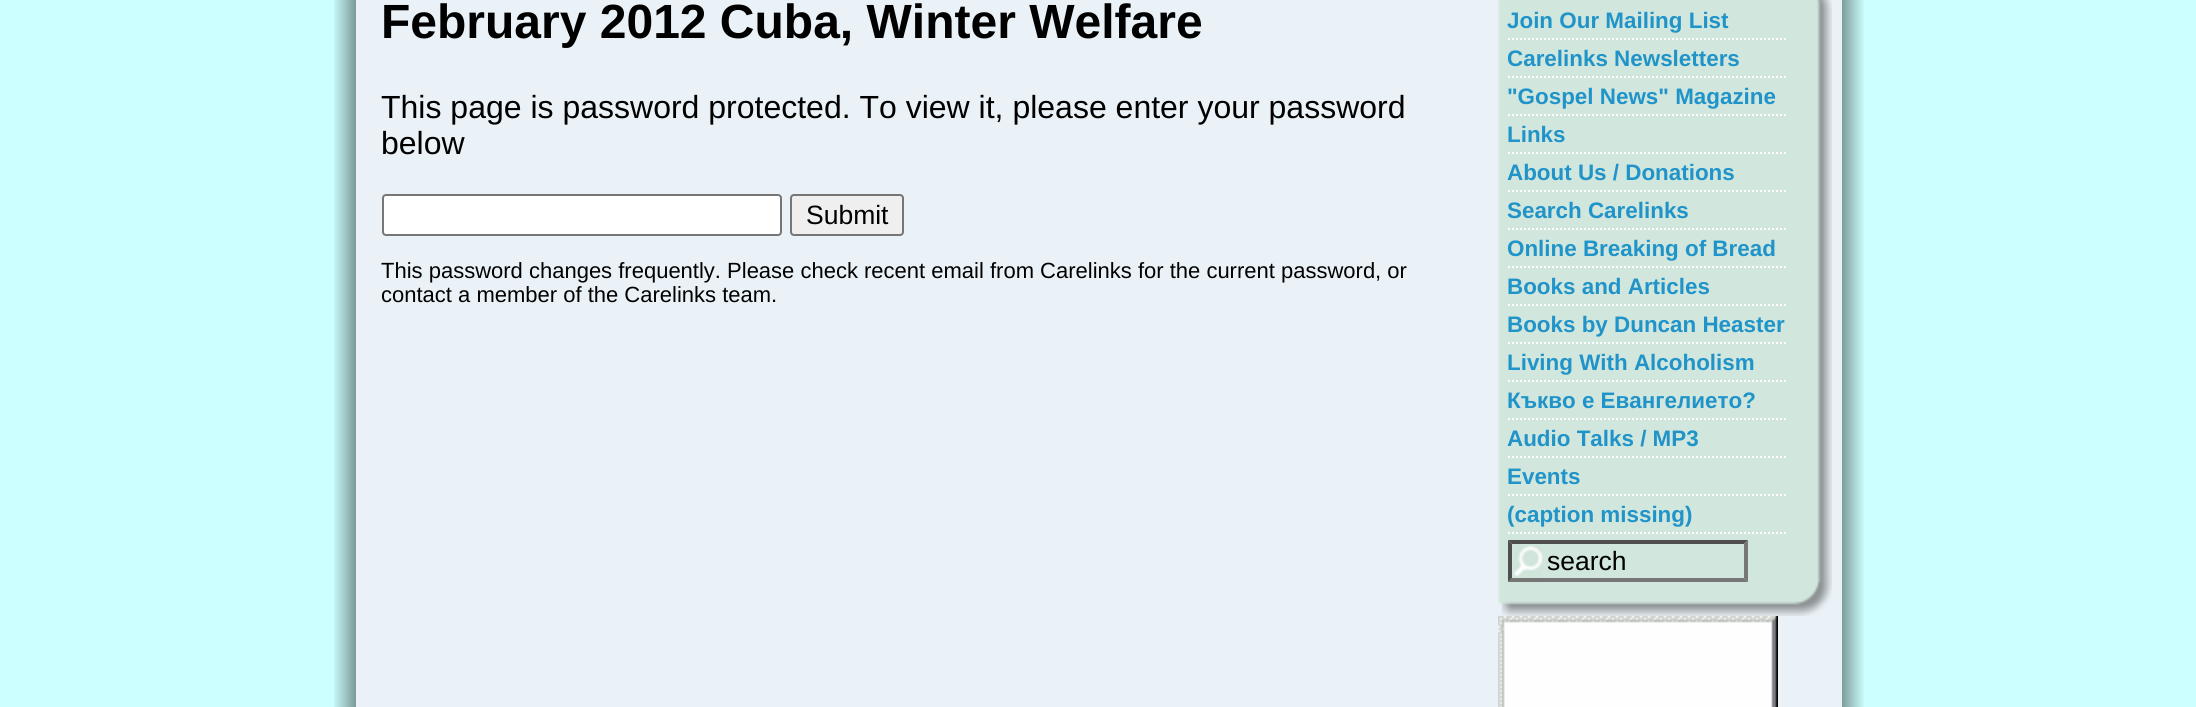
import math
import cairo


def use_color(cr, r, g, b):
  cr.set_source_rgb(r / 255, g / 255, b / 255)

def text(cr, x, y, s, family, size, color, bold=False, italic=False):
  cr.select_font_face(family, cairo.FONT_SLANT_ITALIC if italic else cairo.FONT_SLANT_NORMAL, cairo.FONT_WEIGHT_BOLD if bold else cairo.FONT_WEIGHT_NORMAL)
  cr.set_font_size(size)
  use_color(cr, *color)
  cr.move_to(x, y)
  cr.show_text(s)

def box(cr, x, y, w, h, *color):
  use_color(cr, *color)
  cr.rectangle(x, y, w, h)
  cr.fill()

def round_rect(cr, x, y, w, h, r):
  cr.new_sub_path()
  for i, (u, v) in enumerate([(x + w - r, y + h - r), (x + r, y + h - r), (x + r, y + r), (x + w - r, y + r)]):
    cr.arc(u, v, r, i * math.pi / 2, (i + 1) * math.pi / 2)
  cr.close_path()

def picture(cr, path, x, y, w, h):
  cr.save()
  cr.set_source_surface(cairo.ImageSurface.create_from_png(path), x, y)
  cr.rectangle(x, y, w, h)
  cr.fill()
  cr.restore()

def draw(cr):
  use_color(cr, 204, 255, 255)
  cr.paint()
  picture(cr, "img_01.png", 334, 0, 22, 707)
  picture(cr, "img_02.png", 1842, 0, 22, 707)
  box(cr, 356, 0, 1486, 707, 234, 242, 247)
  use_color(cr, 255, 255, 255)
  round_rect(cr, 383, 195, 398, 40, 3)
  cr.fill_preserve()
  use_color(cr, 118, 118, 118)
  cr.stroke()
  use_color(cr, 239, 239, 239)
  round_rect(cr, 791, 195, 112, 40, 3)
  cr.fill_preserve()
  use_color(cr, 118, 118, 118)
  cr.stroke()
  picture(cr, "img_03.png", 1498, 0, 334, 8)
  picture(cr, "img_04.png", 1498, 8, 334, 574)
  cr.new_path()
  cr.move_to(1508, 39)
  cr.line_to(1788, 39)
  use_color(cr, 255, 255, 255)
  cr.set_dash([2, 2])
  cr.stroke()
  cr.new_path()
  cr.move_to(1508, 77)
  cr.line_to(1788, 77)
  cr.stroke()
  cr.new_path()
  cr.move_to(1508, 115)
  cr.line_to(1788, 115)
  cr.stroke()
  cr.new_path()
  cr.move_to(1508, 153)
  cr.line_to(1788, 153)
  cr.stroke()
  cr.new_path()
  cr.move_to(1508, 191)
  cr.line_to(1788, 191)
  cr.stroke()
  cr.new_path()
  cr.move_to(1508, 229)
  cr.line_to(1788, 229)
  cr.stroke()
  cr.new_path()
  cr.move_to(1508, 267)
  cr.line_to(1788, 267)
  cr.stroke()
  cr.new_path()
  cr.move_to(1508, 305)
  cr.line_to(1788, 305)
  cr.stroke()
  cr.new_path()
  cr.move_to(1508, 343)
  cr.line_to(1788, 343)
  cr.stroke()
  cr.new_path()
  cr.move_to(1508, 381)
  cr.line_to(1788, 381)
  cr.stroke()
  cr.new_path()
  cr.move_to(1508, 419)
  cr.line_to(1788, 419)
  cr.stroke()
  cr.new_path()
  cr.move_to(1508, 457)
  cr.line_to(1788, 457)
  cr.stroke()
  cr.new_path()
  cr.move_to(1508, 495)
  cr.line_to(1788, 495)
  cr.stroke()
  cr.new_path()
  cr.move_to(1508, 533)
  cr.line_to(1788, 533)
  cr.stroke()
  picture(cr, "img_05.png", 1514, 546, 29, 31)
  use_color(cr, 79, 79, 79)
  cr.new_path()
  cr.move_to(1508, 540)
  cr.line_to(1748, 540)
  cr.line_to(1744, 544)
  cr.line_to(1512, 544)
  cr.close_path()
  cr.fill()
  use_color(cr, 118, 118, 118)
  cr.new_path()
  cr.move_to(1748, 540)
  cr.line_to(1748, 582)
  cr.line_to(1744, 578)
  cr.line_to(1744, 544)
  cr.close_path()
  cr.fill()
  cr.new_path()
  cr.move_to(1748, 582)
  cr.line_to(1508, 582)
  cr.line_to(1512, 578)
  cr.line_to(1744, 578)
  cr.close_path()
  cr.fill()
  use_color(cr, 79, 79, 79)
  cr.new_path()
  cr.move_to(1508, 582)
  cr.line_to(1508, 540)
  cr.line_to(1512, 544)
  cr.line_to(1512, 578)
  cr.close_path()
  cr.fill()
  picture(cr, "img_06.png", 1498, 582, 334, 34)
  picture(cr, "img_07.png", 1498, 616, 280, 91)
  text(cr, 381, 38, "February 2012 Cuba, Winter Welfare", "Liberation Sans", 48, (0, 0, 0), bold=True)
  text(cr, 381, 118, "This page is password protected. To view it, please enter your password", "Liberation Sans", 32, (0, 0, 0))
  text(cr, 381, 154, "below", "Liberation Sans", 32, (0, 0, 0))
  text(cr, 806, 224, "Submit", "Liberation Sans", 26.5, (0, 0, 0))
  text(cr, 381, 278, "This password changes frequently. Please check recent email from Carelinks for the current password, or", "Liberation Sans", 22, (0, 0, 0))
  text(cr, 381, 302, "contact a member of the Carelinks team.", "Liberation Sans", 22, (0, 0, 0))
  text(cr, 1507, 28, "Join Our Mailing List", "Liberation Sans", 22.4, (32, 148, 201), bold=True)
  text(cr, 1507, 66, "Carelinks Newsletters", "Liberation Sans", 22.4, (32, 148, 201), bold=True)
  text(cr, 1507, 104, "\"Gospel News\" Magazine", "Liberation Sans", 22.4, (32, 148, 201), bold=True)
  text(cr, 1507, 142, "Links", "Liberation Sans", 22.4, (32, 148, 201), bold=True)
  text(cr, 1507, 180, "About Us / Donations", "Liberation Sans", 22.4, (32, 148, 201), bold=True)
  text(cr, 1507, 218, "Search Carelinks", "Liberation Sans", 22.4, (32, 148, 201), bold=True)
  text(cr, 1507, 256, "Online Breaking of Bread", "Liberation Sans", 22.4, (32, 148, 201), bold=True)
  text(cr, 1507, 294, "Books and Articles", "Liberation Sans", 22.4, (32, 148, 201), bold=True)
  text(cr, 1507, 332, "Books by Duncan Heaster", "Liberation Sans", 22.4, (32, 148, 201), bold=True)
  text(cr, 1507, 370, "Living With Alcoholism", "Liberation Sans", 22.4, (32, 148, 201), bold=True)
  text(cr, 1507, 408, "Къкво е Евангелието?", "Liberation Sans", 22.4, (32, 148, 201), bold=True)
  text(cr, 1507, 446, "Audio Talks / MP3", "Liberation Sans", 22.4, (32, 148, 201), bold=True)
  text(cr, 1507, 484, "Events", "Liberation Sans", 22.4, (32, 148, 201), bold=True)
  text(cr, 1507, 522, "(caption missing)", "Liberation Sans", 22.4, (32, 148, 201), bold=True)
  text(cr, 1547, 570, "search", "Liberation Sans", 26.5, (0, 0, 0))


surface = cairo.ImageSurface(cairo.FORMAT_RGB24, 2196, 707)
cr = cairo.Context(surface)
options = cairo.FontOptions()
options.set_hint_metrics(cairo.HINT_METRICS_OFF)
options.set_hint_style(cairo.HINT_STYLE_NONE)
cr.set_font_options(options)
cr.set_miter_limit(4)
draw(cr)
surface.write_to_png("out.png")
